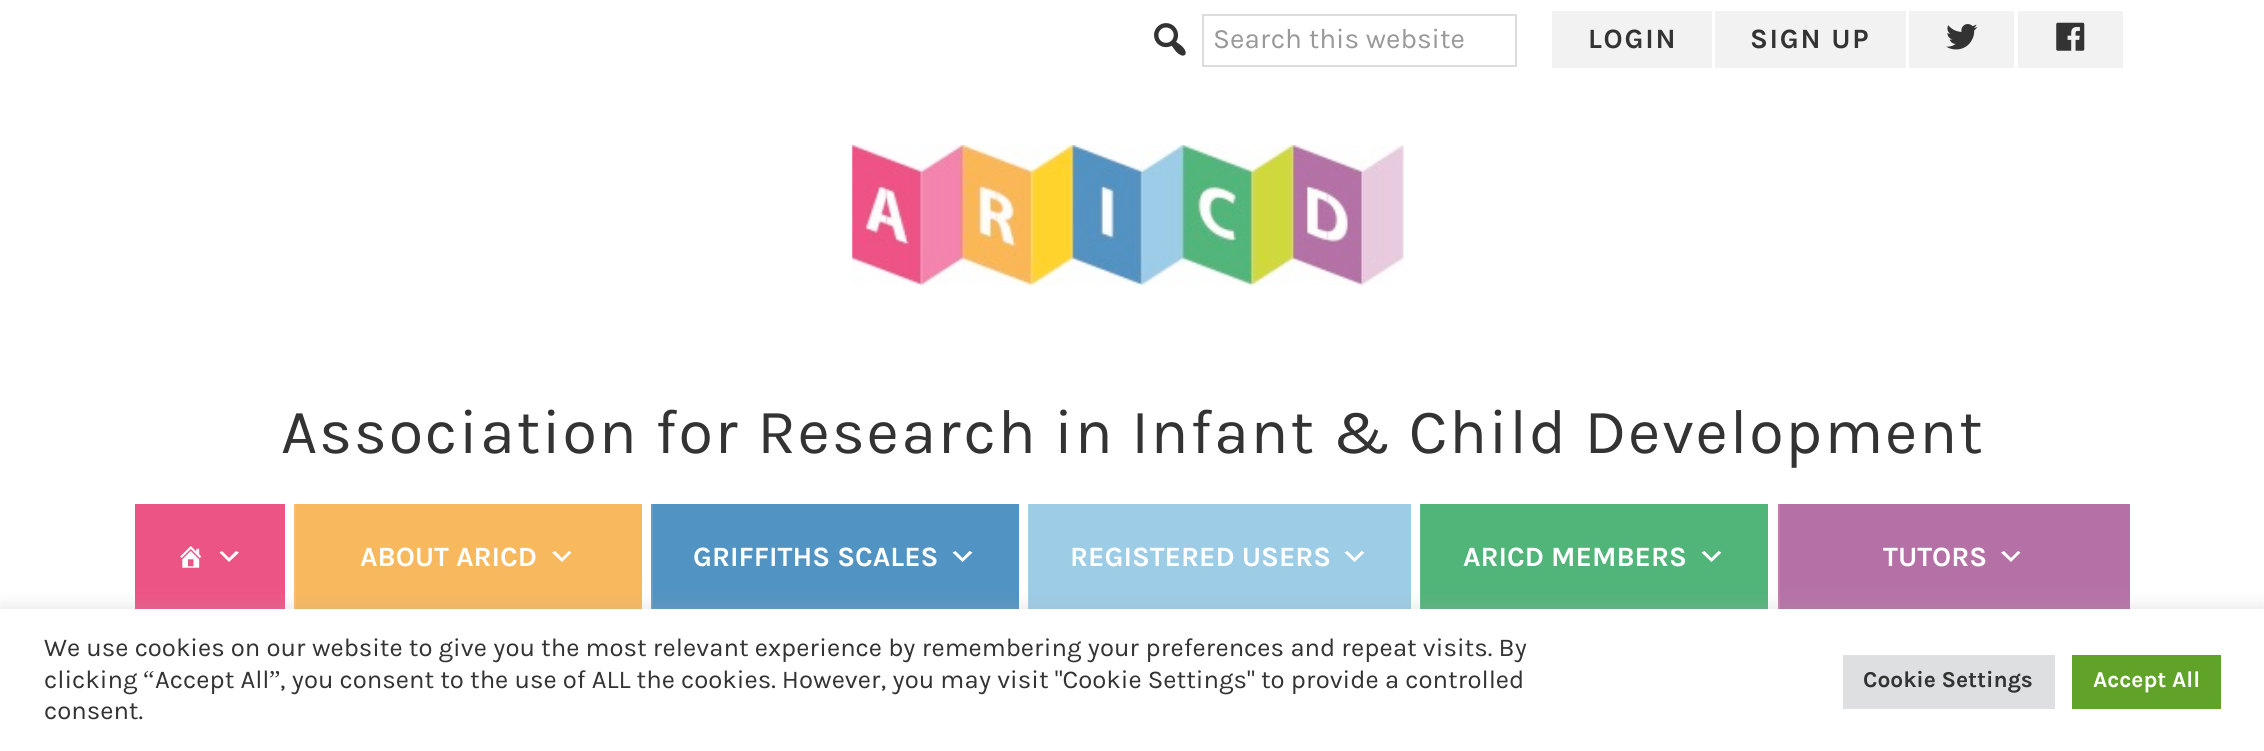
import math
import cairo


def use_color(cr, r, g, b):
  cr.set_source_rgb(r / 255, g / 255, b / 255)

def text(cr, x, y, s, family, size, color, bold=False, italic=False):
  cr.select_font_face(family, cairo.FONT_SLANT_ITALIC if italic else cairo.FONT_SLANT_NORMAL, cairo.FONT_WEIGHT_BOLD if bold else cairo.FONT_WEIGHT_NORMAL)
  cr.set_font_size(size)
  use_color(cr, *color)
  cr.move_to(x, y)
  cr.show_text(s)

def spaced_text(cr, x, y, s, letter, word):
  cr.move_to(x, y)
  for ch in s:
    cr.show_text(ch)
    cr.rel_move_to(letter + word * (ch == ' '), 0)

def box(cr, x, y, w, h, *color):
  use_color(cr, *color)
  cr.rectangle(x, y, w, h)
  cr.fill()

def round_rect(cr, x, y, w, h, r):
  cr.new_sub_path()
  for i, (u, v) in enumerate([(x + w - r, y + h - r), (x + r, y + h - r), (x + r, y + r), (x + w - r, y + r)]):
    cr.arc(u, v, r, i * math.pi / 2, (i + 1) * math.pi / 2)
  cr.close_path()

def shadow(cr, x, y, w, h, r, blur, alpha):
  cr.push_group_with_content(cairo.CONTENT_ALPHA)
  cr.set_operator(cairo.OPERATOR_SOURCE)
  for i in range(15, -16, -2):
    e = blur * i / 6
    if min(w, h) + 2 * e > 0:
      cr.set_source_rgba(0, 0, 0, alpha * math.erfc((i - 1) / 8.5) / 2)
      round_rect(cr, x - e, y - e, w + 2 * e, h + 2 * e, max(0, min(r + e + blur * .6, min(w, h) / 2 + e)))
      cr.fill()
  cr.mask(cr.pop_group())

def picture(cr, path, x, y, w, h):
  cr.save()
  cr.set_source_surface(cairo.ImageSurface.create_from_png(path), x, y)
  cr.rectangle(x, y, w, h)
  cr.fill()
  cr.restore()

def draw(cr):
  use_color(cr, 255, 255, 255)
  cr.paint()
  picture(cr, "img_01.png", 1154, 23, 32, 33)
  cr.rectangle(1203, 15, 313, 51)
  use_color(cr, 221, 221, 221)
  cr.stroke()
  box(cr, 1552, 11, 160, 57, 242, 242, 242)
  box(cr, 1715, 11, 191, 57, 242, 242, 242)
  box(cr, 1909, 11, 105, 57, 242, 242, 242)
  picture(cr, "img_02.png", 1946, 24, 32, 26)
  box(cr, 2018, 11, 105, 57, 242, 242, 242)
  picture(cr, "img_03.png", 2056, 22, 29, 29)
  picture(cr, "img_04.png", 852, 145, 552, 141)
  box(cr, 135, 504, 150, 105, 237, 84, 134)
  picture(cr, "img_05.png", 180, 546, 22, 22)
  use_color(cr, 255, 255, 255)
  cr.new_path()
  cr.move_to(222, 551)
  cr.line_to(229, 558)
  cr.line_to(236, 551)
  cr.line_to(239, 552.5)
  cr.line_to(229, 562)
  cr.line_to(219.5, 552.5)
  cr.close_path()
  cr.fill()
  box(cr, 296, 504, 346, 105, 248, 184, 93)
  box(cr, 294, 504, 2, 105, 249, 191, 109)
  use_color(cr, 255, 255, 255)
  cr.new_path()
  cr.move_to(555, 551)
  cr.line_to(562, 558)
  cr.line_to(569, 551)
  cr.line_to(571.5, 552.5)
  cr.line_to(562, 562)
  cr.line_to(552, 552.5)
  cr.close_path()
  cr.fill()
  box(cr, 653, 504, 366, 105, 81, 147, 195)
  box(cr, 651, 504, 2, 105, 98, 158, 201)
  use_color(cr, 255, 255, 255)
  cr.new_path()
  cr.move_to(955.5, 551)
  cr.line_to(962.5, 558)
  cr.line_to(969.5, 551)
  cr.line_to(972.5, 552.5)
  cr.line_to(962.5, 562)
  cr.line_to(952.5, 552.5)
  cr.close_path()
  cr.fill()
  box(cr, 1029, 504, 382, 105, 156, 204, 230)
  box(cr, 1028, 504, 1, 105, 166, 209, 233)
  use_color(cr, 255, 255, 255)
  cr.new_path()
  cr.move_to(1347.5, 551)
  cr.line_to(1354.5, 558)
  cr.line_to(1361.5, 551)
  cr.line_to(1364.5, 552.5)
  cr.line_to(1354.5, 562)
  cr.line_to(1344.5, 552.5)
  cr.close_path()
  cr.fill()
  box(cr, 1421, 504, 347, 105, 81, 180, 121)
  box(cr, 1420, 504, 1, 105, 98, 188, 134)
  use_color(cr, 255, 255, 255)
  cr.new_path()
  cr.move_to(1704.5, 551)
  cr.line_to(1711.5, 558)
  cr.line_to(1718.5, 551)
  cr.line_to(1721.5, 552.5)
  cr.line_to(1711.5, 562)
  cr.line_to(1701.5, 552.5)
  cr.close_path()
  cr.fill()
  box(cr, 1780, 504, 350, 105, 181, 113, 166)
  box(cr, 1778, 504, 2, 105, 188, 127, 175)
  use_color(cr, 255, 255, 255)
  cr.new_path()
  cr.move_to(2004, 551)
  cr.line_to(2011, 558)
  cr.line_to(2018, 551)
  cr.line_to(2020.5, 552.5)
  cr.line_to(2011, 562)
  cr.line_to(2001, 552.5)
  cr.close_path()
  cr.fill()
  use_color(cr, 172, 171, 171)
  shadow(cr, 0, 607, 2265, 144, 0, 9, 0.3)
  box(cr, 0, 609, 2264, 142, 255, 255, 255)
  box(cr, 1843, 655, 212, 54, 222, 223, 224)
  box(cr, 2072, 655, 149, 54, 97, 162, 41)
  text(cr, 1213, 48, "Search this website", "Karla", 28, (153, 153, 153))
  cr.select_font_face("Karla", cairo.FONT_SLANT_NORMAL, cairo.FONT_WEIGHT_BOLD)
  use_color(cr, 51, 51, 51)
  spaced_text(cr, 1588, 48, "LOGIN", 1.75, 0)
  spaced_text(cr, 1750, 48, "SIGN UP", 1.75, 0)
  cr.select_font_face("Karla")
  cr.set_font_size(63)
  spaced_text(cr, 281, 453, "Association for Research in Infant & Child Development", 1.75, 0)
  text(cr, 360, 566, "ABOUT ARICD", "Karla", 28, (255, 255, 255), bold=True)
  text(cr, 693, 566, "GRIFFITHS SCALES", "Karla", 28, (255, 255, 255), bold=True)
  text(cr, 1070, 566, "REGISTERED USERS", "Karla", 28, (255, 255, 255), bold=True)
  text(cr, 1463, 566, "ARICD MEMBERS", "Karla", 28, (255, 255, 255), bold=True)
  text(cr, 1883, 566, "TUTORS", "Karla", 28, (255, 255, 255), bold=True)
  text(cr, 44, 656, "We use cookies on our website to give you the most relevant experience by remembering your preferences and repeat visits. By", "Karla", 25.67, (51, 51, 51))
  text(cr, 44, 688, "clicking", "Karla", 25.67, (51, 51, 51))
  text(cr, 143, 688, "“", "Liberation Serif", 25.67, (51, 51, 51))
  text(cr, 155, 688, "Accept All", "Karla", 25.67, (51, 51, 51))
  text(cr, 269, 688, "”", "Liberation Serif", 25.67, (51, 51, 51))
  text(cr, 280, 688, ", you consent to the use of ALL the cookies. However, you may visit \"Cookie Settings\" to provide a controlled", "Karla", 25.67, (51, 51, 51))
  text(cr, 44, 719, "consent.", "Karla", 25.67, (51, 51, 51))
  text(cr, 1863, 687, "Cookie Settings", "Karla", 22.75, (51, 51, 51), bold=True)
  text(cr, 2093, 687, "Accept All", "Karla", 22.75, (255, 255, 255), bold=True)


surface = cairo.ImageSurface(cairo.FORMAT_RGB24, 2264, 751)
cr = cairo.Context(surface)
options = cairo.FontOptions()
options.set_hint_metrics(cairo.HINT_METRICS_OFF)
options.set_hint_style(cairo.HINT_STYLE_NONE)
cr.set_font_options(options)
cr.set_miter_limit(4)
draw(cr)
surface.write_to_png("out.png")
